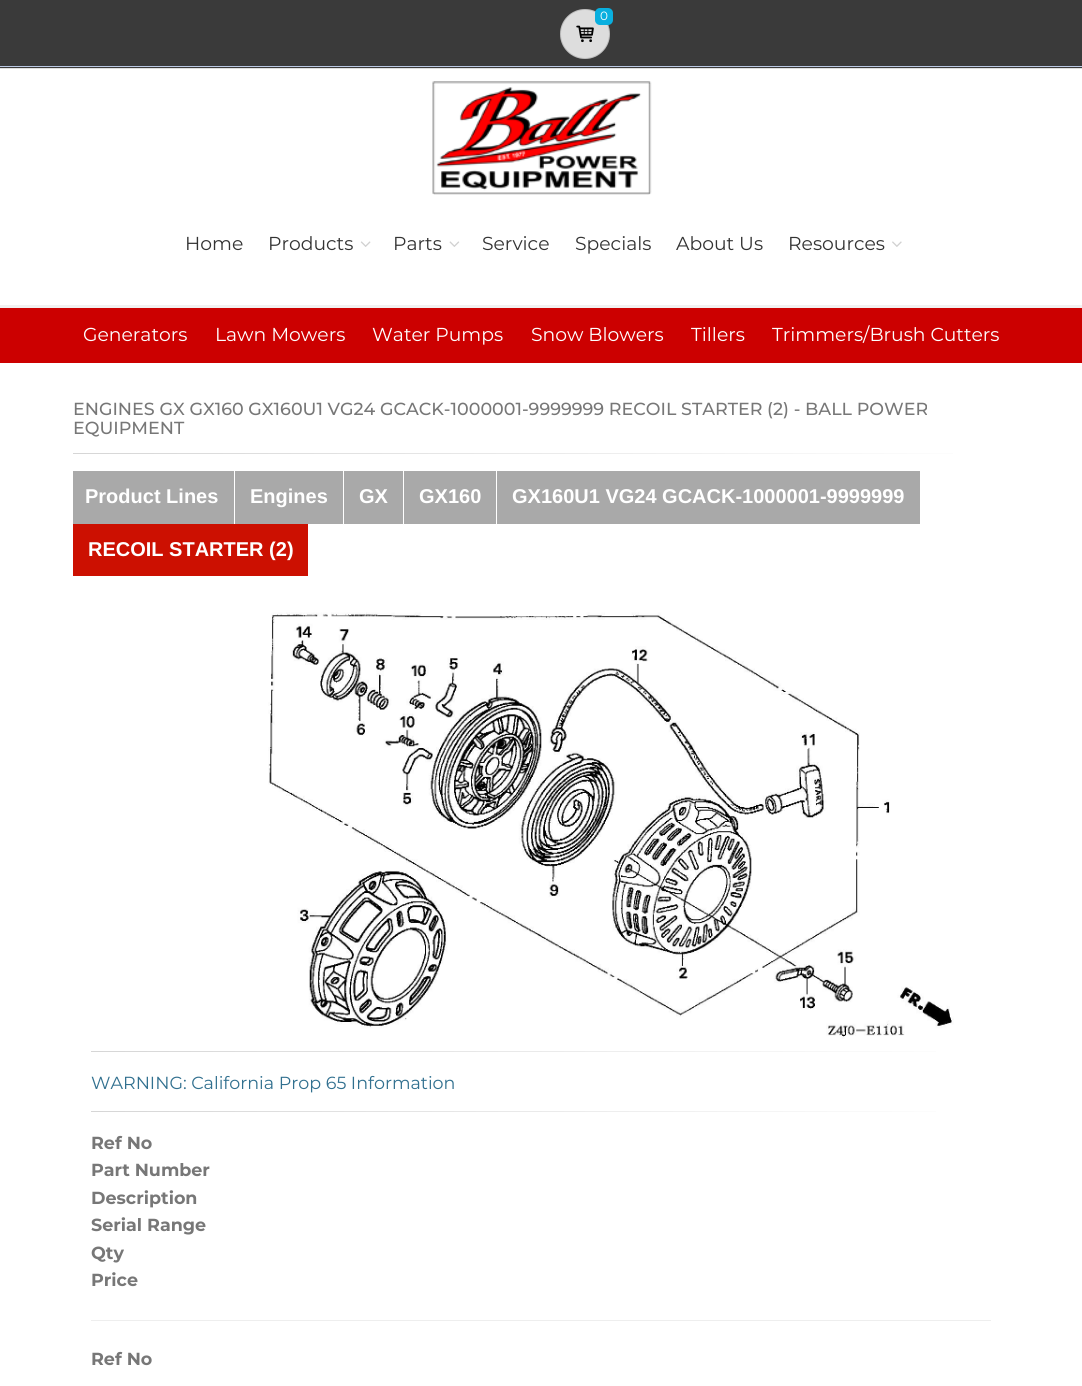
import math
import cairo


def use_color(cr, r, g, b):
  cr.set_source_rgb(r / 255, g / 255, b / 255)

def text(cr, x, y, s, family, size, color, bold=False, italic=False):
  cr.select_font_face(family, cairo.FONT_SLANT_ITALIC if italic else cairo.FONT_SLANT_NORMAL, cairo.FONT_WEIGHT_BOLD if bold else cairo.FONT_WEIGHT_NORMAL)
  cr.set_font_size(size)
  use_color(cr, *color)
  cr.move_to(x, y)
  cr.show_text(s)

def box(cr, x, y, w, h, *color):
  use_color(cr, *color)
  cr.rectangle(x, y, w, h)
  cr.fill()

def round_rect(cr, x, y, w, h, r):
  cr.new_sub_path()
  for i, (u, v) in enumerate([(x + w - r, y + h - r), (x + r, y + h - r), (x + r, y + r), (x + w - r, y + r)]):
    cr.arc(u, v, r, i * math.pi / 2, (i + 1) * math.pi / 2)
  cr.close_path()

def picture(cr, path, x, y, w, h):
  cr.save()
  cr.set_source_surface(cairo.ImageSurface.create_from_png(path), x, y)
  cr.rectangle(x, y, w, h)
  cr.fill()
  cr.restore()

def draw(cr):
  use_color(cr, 255, 255, 255)
  cr.paint()
  box(cr, 0, 0, 1082, 68, 58, 58, 58)
  box(cr, 0, 66, 1082, 1, 187, 201, 227)
  use_color(cr, 221, 221, 221)
  cr.arc(585, 34, 25, 0, 2 * math.pi)
  cr.fill()
  cr.arc(585, 34, 24.5, 0, 2 * math.pi)
  cr.set_source_rgba(0, 0, 0, 0.15)
  cr.set_line_width(1)
  cr.stroke()
  use_color(cr, 9, 175, 223)
  round_rect(cr, 595, 8, 18, 17, 5)
  cr.fill()
  picture(cr, "img_01.png", 576, 25, 18, 18)
  box(cr, 0, 68, 1082, 1, 221, 221, 221)
  box(cr, 0, 305, 1082, 3, 241, 241, 241)
  picture(cr, "img_02.png", 432, 81, 220, 114)
  picture(cr, "img_03.png", 360, 241, 11, 6)
  picture(cr, "img_04.png", 449, 241, 11, 6)
  picture(cr, "img_05.png", 892, 241, 10, 6)
  box(cr, 0, 308, 1082, 55, 204, 0, 0)
  gradient = cairo.LinearGradient(73, 453, 1010, 453)
  gradient.add_color_stop_rgba(0, 0.839, 0.839, 0.839, 1)
  gradient.add_color_stop_rgba(1, 1, 1, 1, 1)
  cr.set_source(gradient)
  cr.rectangle(73, 453, 880, 1)
  cr.fill()
  box(cr, 73, 471, 161, 53, 169, 169, 169)
  box(cr, 235, 471, 108, 53, 169, 169, 169)
  box(cr, 344, 471, 59, 53, 169, 169, 169)
  box(cr, 404, 471, 516, 53, 169, 169, 169)
  box(cr, 496, 471, 1, 53, 255, 255, 255)
  box(cr, 73, 524, 235, 52, 204, 16, 1)
  picture(cr, "img_06.png", 268, 612, 686, 427)
  gradient = cairo.LinearGradient(91, 1052, 991, 1052)
  gradient.add_color_stop_rgba(0, 0.839, 0.839, 0.839, 1)
  gradient.add_color_stop_rgba(1, 1, 1, 1, 1)
  cr.set_source(gradient)
  cr.rectangle(91, 1051, 845, 1)
  cr.fill()
  gradient = cairo.LinearGradient(91, 1112, 991, 1112)
  gradient.add_color_stop_rgba(0, 0.839, 0.839, 0.839, 1)
  gradient.add_color_stop_rgba(1, 1, 1, 1, 1)
  cr.set_source(gradient)
  cr.rectangle(91, 1111, 845, 1)
  cr.fill()
  box(cr, 91, 1320, 900, 1, 238, 238, 238)
  text(cr, 600, 20, "0", "Montserrat", 12, (255, 255, 255))
  text(cr, 185, 250, "Home", "Montserrat", 18.75, (51, 51, 51))
  text(cr, 268, 250, "Products", "Montserrat", 18.75, (51, 51, 51))
  text(cr, 393, 250, "Parts", "Montserrat", 18.75, (51, 51, 51))
  text(cr, 482, 250, "Service", "Montserrat", 18.75, (51, 51, 51))
  text(cr, 575, 250, "Specials", "Montserrat", 18.75, (51, 51, 51))
  text(cr, 676, 250, "About Us", "Montserrat", 18.75, (51, 51, 51))
  text(cr, 788, 250, "Resources", "Montserrat", 18.75, (51, 51, 51))
  text(cr, 83, 341, "Generators", "Montserrat", 18.75, (255, 255, 255))
  text(cr, 215, 341, "Lawn Mowers", "Montserrat", 18.75, (255, 255, 255))
  text(cr, 372, 341, "Water Pumps", "Montserrat", 18.75, (255, 255, 255))
  text(cr, 531, 341, "Snow Blowers", "Montserrat", 18.75, (255, 255, 255))
  text(cr, 691, 341, "Tillers", "Montserrat", 18.75, (255, 255, 255))
  text(cr, 772, 341, "Trimmers/Brush Cutters", "Montserrat", 18.75, (255, 255, 255))
  text(cr, 73, 415, "ENGINES GX GX160 GX160U1 VG24 GCACK-1000001-9999999 RECOIL STARTER (2) - BALL POWER", "Montserrat Medium", 17.5, (119, 119, 119))
  text(cr, 73, 434, "EQUIPMENT", "Montserrat Medium", 17.5, (119, 119, 119))
  text(cr, 85, 503, "Product Lines", "Liberation Sans", 20, (255, 255, 255), bold=True)
  text(cr, 250, 503, "Engines", "Liberation Sans", 20, (255, 255, 255), bold=True)
  text(cr, 359, 503, "GX", "Liberation Sans", 20, (255, 255, 255), bold=True)
  text(cr, 419, 503, "GX160", "Liberation Sans", 20, (255, 255, 255), bold=True)
  text(cr, 512, 503, "GX160U1 VG24 GCACK-1000001-9999999", "Liberation Sans", 20, (255, 255, 255), bold=True)
  text(cr, 88, 556, "RECOIL STARTER (2)", "Liberation Sans", 20, (255, 255, 255), bold=True)
  text(cr, 91, 1089, "WARNING: California Prop 65 Information", "Montserrat", 17.5, (49, 112, 143))
  text(cr, 91, 1149, "Ref No", "Montserrat", 17.5, (119, 119, 119), bold=True)
  text(cr, 91, 1176, "Part Number", "Montserrat", 17.5, (119, 119, 119), bold=True)
  text(cr, 91, 1204, "Description", "Montserrat", 17.5, (119, 119, 119), bold=True)
  text(cr, 91, 1231, "Serial Range", "Montserrat", 17.5, (119, 119, 119), bold=True)
  text(cr, 91, 1259, "Qty", "Montserrat", 17.5, (119, 119, 119), bold=True)
  text(cr, 91, 1286, "Price", "Montserrat", 17.5, (119, 119, 119), bold=True)
  text(cr, 91, 1365, "Ref No", "Montserrat", 17.5, (119, 119, 119), bold=True)


surface = cairo.ImageSurface(cairo.FORMAT_RGB24, 1082, 1386)
cr = cairo.Context(surface)
options = cairo.FontOptions()
options.set_hint_metrics(cairo.HINT_METRICS_OFF)
options.set_hint_style(cairo.HINT_STYLE_NONE)
cr.set_font_options(options)
cr.set_miter_limit(4)
draw(cr)
surface.write_to_png("out.png")
